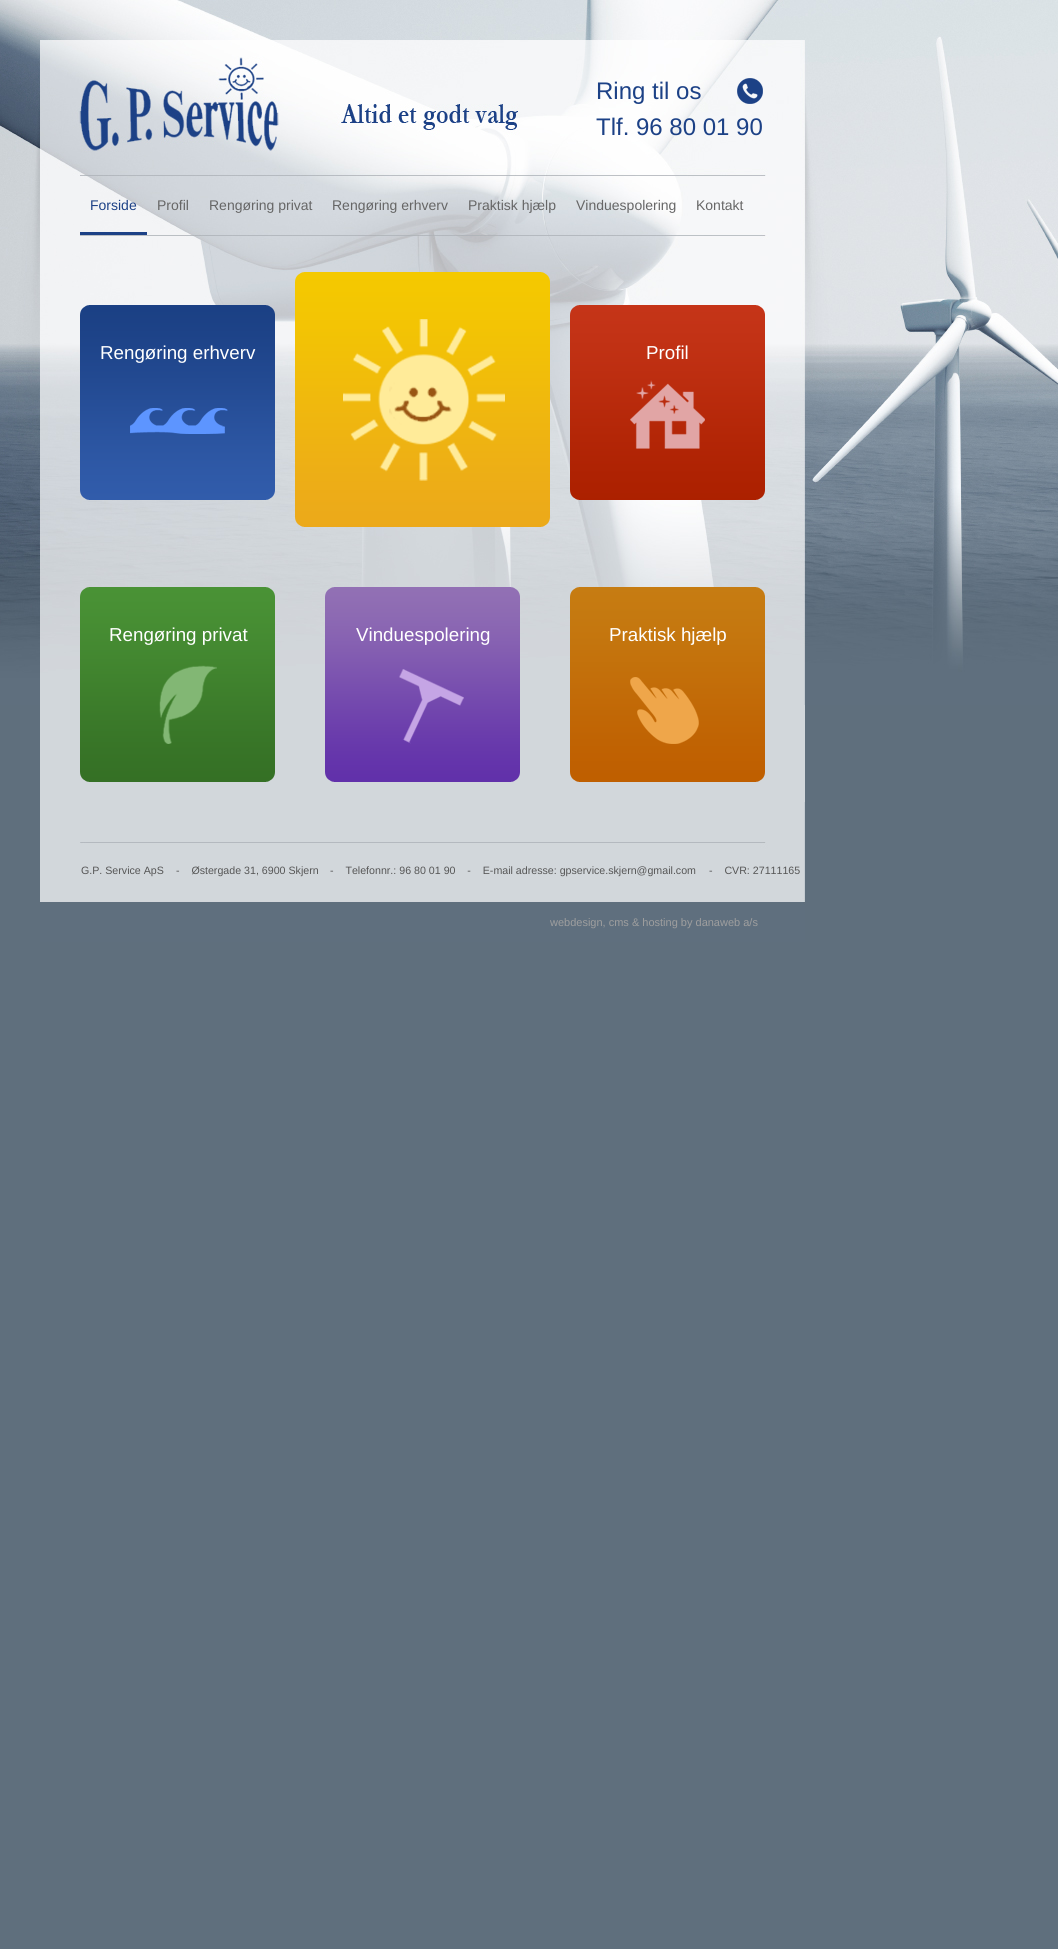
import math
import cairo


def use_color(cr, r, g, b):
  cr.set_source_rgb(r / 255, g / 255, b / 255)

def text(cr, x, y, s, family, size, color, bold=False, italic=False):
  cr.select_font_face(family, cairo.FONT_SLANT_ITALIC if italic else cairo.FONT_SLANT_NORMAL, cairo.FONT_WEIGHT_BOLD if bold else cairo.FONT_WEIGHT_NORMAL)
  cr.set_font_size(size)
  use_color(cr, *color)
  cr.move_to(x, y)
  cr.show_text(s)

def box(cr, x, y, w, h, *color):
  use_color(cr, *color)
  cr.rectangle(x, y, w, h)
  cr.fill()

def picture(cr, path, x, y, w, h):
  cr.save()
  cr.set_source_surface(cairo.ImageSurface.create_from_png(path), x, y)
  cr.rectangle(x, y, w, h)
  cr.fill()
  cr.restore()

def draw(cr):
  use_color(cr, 95, 111, 125)
  cr.paint()
  box(cr, 40, 705, 765, 97, 210, 215, 219)
  picture(cr, "img_01.png", 0, 0, 1058, 705)
  picture(cr, "img_02.png", 737, 78, 26, 26)
  box(cr, 80, 232, 67, 3, 28, 65, 134)
  picture(cr, "img_03.png", 80, 305, 195, 195)
  picture(cr, "img_04.png", 295, 272, 255, 255)
  picture(cr, "img_05.png", 570, 305, 195, 195)
  picture(cr, "img_06.png", 80, 587, 195, 195)
  picture(cr, "img_07.png", 325, 587, 195, 195)
  picture(cr, "img_08.png", 570, 587, 195, 195)
  picture(cr, "img_09.png", 40, 802, 765, 140)
  text(cr, 596, 99, "Ring til os", "Liberation Sans", 24, (28, 65, 134))
  text(cr, 596, 135, "Tlf. 96 80 01 90", "Liberation Sans", 24, (28, 65, 134))
  text(cr, 90, 210, "Forside", "Liberation Sans", 14, (28, 65, 134))
  text(cr, 157, 210, "Profil", "Liberation Sans", 14, (102, 102, 102))
  text(cr, 209, 210, "Rengøring privat", "Liberation Sans", 14, (102, 102, 102))
  text(cr, 332, 210, "Rengøring erhverv", "Liberation Sans", 14, (102, 102, 102))
  text(cr, 468, 210, "Praktisk hjælp", "Liberation Sans", 14, (102, 102, 102))
  text(cr, 576, 210, "Vinduespolering", "Liberation Sans", 14, (102, 102, 102))
  text(cr, 696, 210, "Kontakt", "Liberation Sans", 14, (102, 102, 102))
  text(cr, 100, 359, "Rengøring erhverv", "Liberation Sans", 18.75, (255, 255, 255))
  text(cr, 646, 359, "Profil", "Liberation Sans", 18.75, (255, 255, 255))
  text(cr, 109, 641, "Rengøring privat", "Liberation Sans", 18.75, (255, 255, 255))
  text(cr, 356, 641, "Vinduespolering", "Liberation Sans", 18.75, (255, 255, 255))
  text(cr, 609, 641, "Praktisk hjælp", "Liberation Sans", 18.75, (255, 255, 255))
  text(cr, 81, 874, "G.P. Service ApS", "Liberation Sans", 10.65, (86, 86, 86))
  text(cr, 176, 874, "-    Østergade 31, 6900 Skjern", "Liberation Sans", 10.65, (86, 86, 86))
  text(cr, 330, 874, "-    Telefonnr.: 96 80 01 90    -    E-mail adresse: gpservice.skjern@gmail.com", "Liberation Sans", 10.65, (86, 86, 86))
  text(cr, 709, 874, "-    CVR: 27111165", "Liberation Sans", 10.65, (86, 86, 86))
  text(cr, 550, 926, "webdesign, cms & hosting by danaweb a/s", "Liberation Sans", 11, (158, 158, 158))


surface = cairo.ImageSurface(cairo.FORMAT_RGB24, 1058, 1949)
cr = cairo.Context(surface)
options = cairo.FontOptions()
options.set_hint_metrics(cairo.HINT_METRICS_OFF)
options.set_hint_style(cairo.HINT_STYLE_NONE)
cr.set_font_options(options)
cr.set_miter_limit(4)
draw(cr)
surface.write_to_png("out.png")
